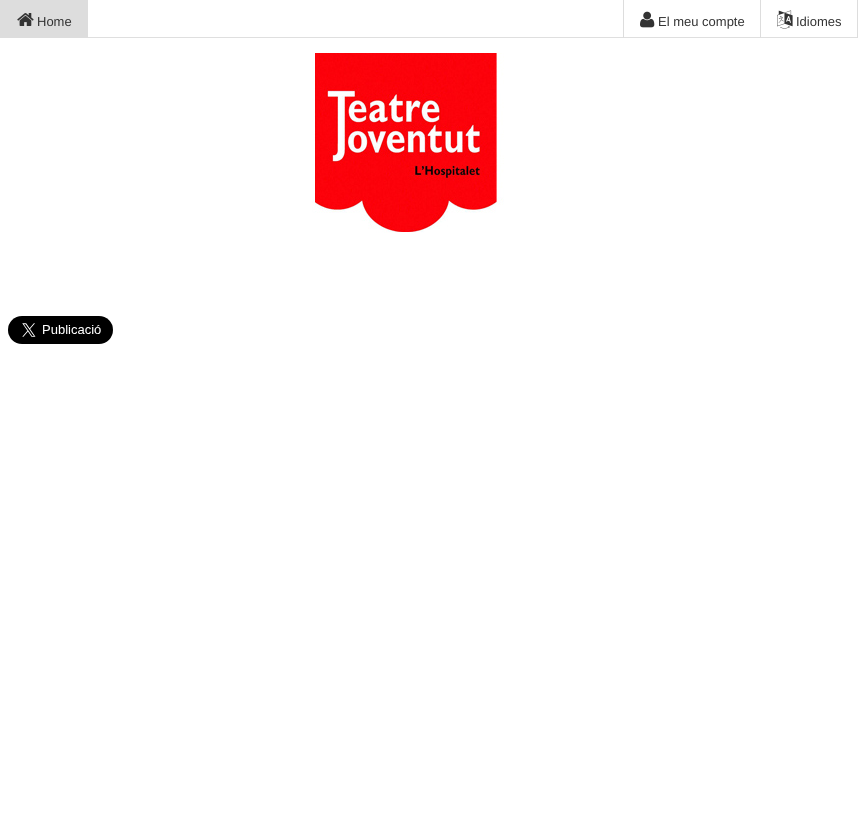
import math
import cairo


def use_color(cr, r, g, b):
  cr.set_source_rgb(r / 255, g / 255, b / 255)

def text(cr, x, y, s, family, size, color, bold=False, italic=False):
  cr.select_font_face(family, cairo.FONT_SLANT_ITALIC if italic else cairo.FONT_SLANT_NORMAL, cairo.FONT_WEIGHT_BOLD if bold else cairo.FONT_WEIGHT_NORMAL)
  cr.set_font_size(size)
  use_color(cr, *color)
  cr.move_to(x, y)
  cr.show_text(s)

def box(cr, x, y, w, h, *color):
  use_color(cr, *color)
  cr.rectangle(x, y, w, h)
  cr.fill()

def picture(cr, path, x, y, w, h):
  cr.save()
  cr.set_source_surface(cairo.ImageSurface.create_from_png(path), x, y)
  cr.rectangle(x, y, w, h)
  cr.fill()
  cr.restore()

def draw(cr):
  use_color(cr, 255, 255, 255)
  cr.paint()
  box(cr, 88, 37, 770, 1, 223, 223, 223)
  box(cr, 857, 0, 1, 38, 221, 221, 221)
  box(cr, 0, 0, 88, 38, 221, 221, 221)
  picture(cr, "img_01.png", 17, 13, 17, 13)
  box(cr, 623, 0, 1, 38, 221, 221, 221)
  picture(cr, "img_02.png", 640, 11, 15, 17)
  box(cr, 760, 0, 1, 38, 221, 221, 221)
  picture(cr, "img_03.png", 777, 10, 16, 19)
  picture(cr, "img_04.png", 312, 53, 192, 180)
  picture(cr, "img_05.png", 8, 316, 105, 28)
  text(cr, 37, 26, "Home", "Liberation Sans", 13, (51, 51, 51))
  text(cr, 658, 26, "El meu compte", "Liberation Sans", 13, (51, 51, 51))
  text(cr, 796, 26, "Idiomes", "Liberation Sans", 13, (51, 51, 51))


surface = cairo.ImageSurface(cairo.FORMAT_RGB24, 858, 833)
cr = cairo.Context(surface)
options = cairo.FontOptions()
options.set_hint_metrics(cairo.HINT_METRICS_OFF)
options.set_hint_style(cairo.HINT_STYLE_NONE)
cr.set_font_options(options)
cr.set_miter_limit(4)
draw(cr)
surface.write_to_png("out.png")
